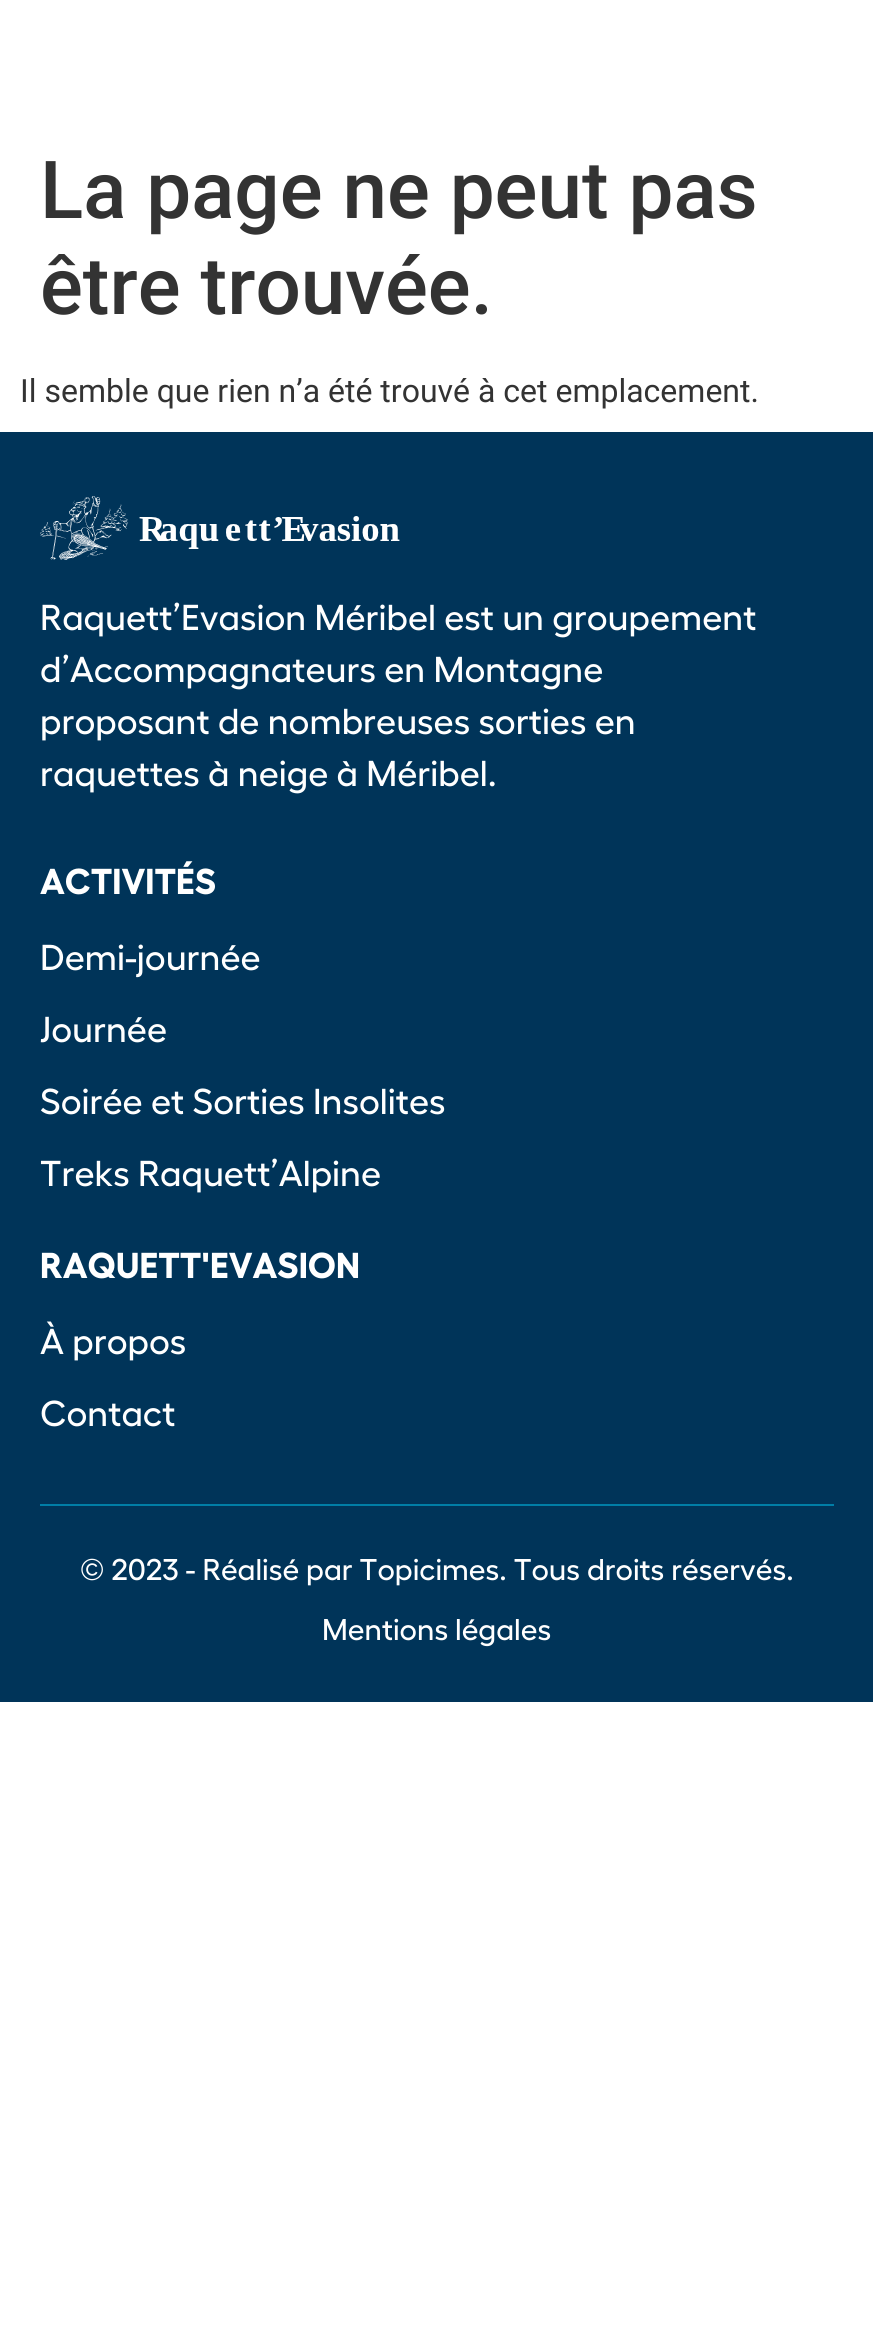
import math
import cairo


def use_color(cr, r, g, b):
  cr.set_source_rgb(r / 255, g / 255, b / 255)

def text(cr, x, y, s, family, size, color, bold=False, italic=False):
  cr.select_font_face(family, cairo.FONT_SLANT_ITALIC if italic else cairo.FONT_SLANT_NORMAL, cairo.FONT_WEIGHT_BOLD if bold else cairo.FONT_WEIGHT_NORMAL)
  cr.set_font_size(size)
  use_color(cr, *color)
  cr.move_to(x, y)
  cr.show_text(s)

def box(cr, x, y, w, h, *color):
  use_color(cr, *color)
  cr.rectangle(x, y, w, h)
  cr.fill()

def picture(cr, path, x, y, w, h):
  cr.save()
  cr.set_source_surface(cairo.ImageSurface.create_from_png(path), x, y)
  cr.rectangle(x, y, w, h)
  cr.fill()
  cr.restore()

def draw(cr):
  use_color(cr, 255, 255, 255)
  cr.paint()
  box(cr, 0, 432, 873, 1270, 0, 52, 89)
  picture(cr, "img_01.png", 40, 496, 360, 64)
  box(cr, 40, 1504, 794, 2, 0, 126, 167)
  text(cr, 40, 218, "La page ne peut pas", "Roboto Medium", 80, (51, 51, 51))
  text(cr, 40, 314, "être trouvée.", "Roboto Medium", 80, (51, 51, 51))
  text(cr, 20, 402, "Il semble que rien n’a été trouvé à cet emplacement.", "Roboto", 32, (51, 51, 51))
  text(cr, 40, 630, "Raquett’Evasion Méribel est un groupement", "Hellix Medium", 36, (255, 255, 255))
  text(cr, 40, 682, "d’Accompagnateurs en Montagne", "Hellix Medium", 36, (255, 255, 255))
  text(cr, 40, 734, "proposant de nombreuses sorties en", "Hellix Medium", 36, (255, 255, 255))
  text(cr, 40, 786, "raquettes à neige à Méribel.", "Hellix Medium", 36, (255, 255, 255))
  text(cr, 40, 894, "ACTIVITÉS", "Hellix", 36, (255, 255, 255), bold=True)
  text(cr, 40, 970, "Demi-journée", "Hellix Medium", 36, (255, 255, 255))
  text(cr, 40, 1042, "Journée", "Hellix Medium", 36, (255, 255, 255))
  text(cr, 40, 1114, "Soirée et Sorties Insolites", "Hellix Medium", 36, (255, 255, 255))
  text(cr, 40, 1186, "Treks Raquett’Alpine", "Hellix Medium", 36, (255, 255, 255))
  text(cr, 40, 1278, "RAQUETT'EVASION", "Hellix", 36, (255, 255, 255), bold=True)
  text(cr, 40, 1354, "À propos", "Hellix Medium", 36, (255, 255, 255))
  text(cr, 40, 1426, "Contact", "Hellix Medium", 36, (255, 255, 255))
  text(cr, 80, 1580, "© 2023 - Réalisé par Topicimes. Tous droits réservés.", "Hellix Medium", 30, (255, 255, 255))
  text(cr, 322, 1640, "Mentions légales", "Hellix Medium", 30, (255, 255, 255))


surface = cairo.ImageSurface(cairo.FORMAT_RGB24, 873, 2348)
cr = cairo.Context(surface)
options = cairo.FontOptions()
options.set_hint_metrics(cairo.HINT_METRICS_OFF)
options.set_hint_style(cairo.HINT_STYLE_NONE)
cr.set_font_options(options)
cr.set_miter_limit(4)
draw(cr)
surface.write_to_png("out.png")
